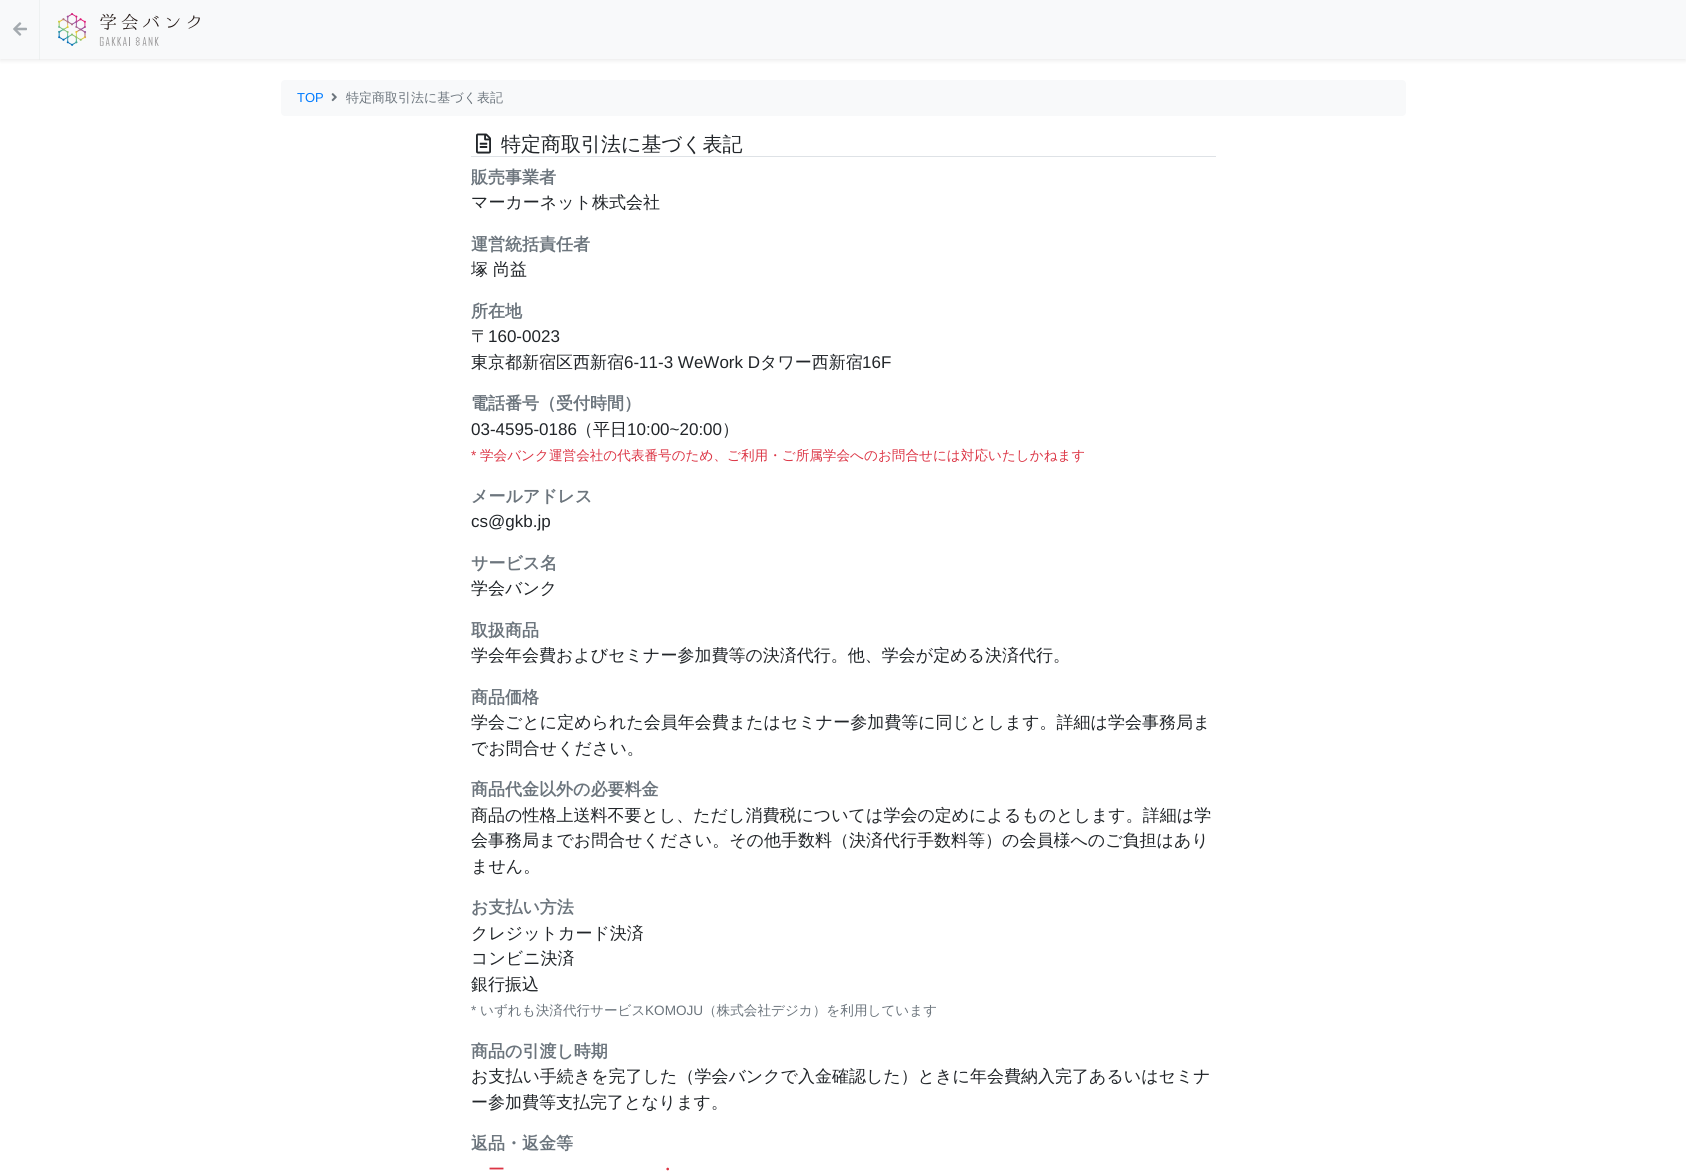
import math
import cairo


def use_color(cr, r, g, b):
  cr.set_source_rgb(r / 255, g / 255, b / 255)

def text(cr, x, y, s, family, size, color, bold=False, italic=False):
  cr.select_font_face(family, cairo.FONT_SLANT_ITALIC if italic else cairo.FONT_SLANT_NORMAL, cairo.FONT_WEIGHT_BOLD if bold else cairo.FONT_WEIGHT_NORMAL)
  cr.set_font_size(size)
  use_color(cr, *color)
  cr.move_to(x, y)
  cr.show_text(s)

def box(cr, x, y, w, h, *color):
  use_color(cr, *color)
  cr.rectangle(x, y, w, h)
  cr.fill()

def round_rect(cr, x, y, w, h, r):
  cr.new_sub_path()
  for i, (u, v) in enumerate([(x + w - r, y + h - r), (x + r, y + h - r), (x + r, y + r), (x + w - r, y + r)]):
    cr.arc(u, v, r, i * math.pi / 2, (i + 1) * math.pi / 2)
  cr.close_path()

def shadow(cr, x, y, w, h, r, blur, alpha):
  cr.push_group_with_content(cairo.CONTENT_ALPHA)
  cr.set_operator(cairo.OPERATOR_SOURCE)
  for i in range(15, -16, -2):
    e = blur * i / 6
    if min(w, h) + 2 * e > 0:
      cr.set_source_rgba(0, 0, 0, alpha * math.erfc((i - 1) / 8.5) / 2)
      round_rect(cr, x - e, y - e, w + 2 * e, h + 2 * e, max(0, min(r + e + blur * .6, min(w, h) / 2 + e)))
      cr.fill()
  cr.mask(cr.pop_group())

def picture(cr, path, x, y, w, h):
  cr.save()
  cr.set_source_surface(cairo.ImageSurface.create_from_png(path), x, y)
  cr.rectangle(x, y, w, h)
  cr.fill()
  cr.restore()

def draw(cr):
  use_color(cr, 255, 255, 255)
  cr.paint()
  use_color(cr, 0, 0, 0)
  shadow(cr, 0, 2, 1686, 59, 0, 2, 0.07)
  box(cr, 0, 0, 1686, 59, 248, 249, 250)
  cr.set_source_rgba(0.91, 0.918, 0.922, 0.6)
  cr.rectangle(39, 0, 1, 60)
  cr.fill()
  picture(cr, "img_01.png", 13, 22, 14, 14)
  picture(cr, "img_02.png", 58, 13, 142, 33)
  use_color(cr, 248, 249, 250)
  round_rect(cr, 281, 80, 1125, 36, 4)
  cr.fill()
  picture(cr, "img_03.png", 331, 93, 6, 9)
  box(cr, 471, 156, 745, 1, 222, 226, 230)
  picture(cr, "img_04.png", 476, 133, 15, 21)
  text(cr, 297, 102, "TOP", "Liberation Sans", 13, (0, 123, 255))
  text(cr, 346, 102, "特定商取引法に基づく表記", "WenQuanYi Zen Hei Medium", 13, (108, 117, 125))
  text(cr, 501, 151, "特定商取引法に基づく表記", "WenQuanYi Zen Hei Medium", 20, (33, 37, 41))
  text(cr, 471, 183, "販売事業者", "WenQuanYi Zen Hei", 17, (108, 117, 125), bold=True)
  text(cr, 471, 208, "マーカーネット株式会社", "WenQuanYi Zen Hei Medium", 17, (33, 37, 41))
  text(cr, 471, 250, "運営統括責任者", "WenQuanYi Zen Hei", 17, (108, 117, 125), bold=True)
  text(cr, 471, 275, "塚 尚益", "WenQuanYi Zen Hei Medium", 17, (33, 37, 41))
  text(cr, 471, 317, "所在地", "WenQuanYi Zen Hei", 17, (108, 117, 125), bold=True)
  text(cr, 471, 342, "〒", "WenQuanYi Zen Hei Medium", 17, (33, 37, 41))
  text(cr, 488, 342, "160-0023", "Liberation Sans", 17, (33, 37, 41))
  text(cr, 471, 368, "東京都新宿区西新宿", "WenQuanYi Zen Hei Medium", 17, (33, 37, 41))
  text(cr, 624, 368, "6-11-3 WeWork D", "Liberation Sans", 17, (33, 37, 41))
  text(cr, 760, 368, "タワー西新宿", "WenQuanYi Zen Hei Medium", 17, (33, 37, 41))
  text(cr, 862, 368, "16F", "Liberation Sans", 17, (33, 37, 41))
  text(cr, 471, 409, "電話番号（受付時間）", "WenQuanYi Zen Hei", 17, (108, 117, 125), bold=True)
  text(cr, 471, 435, "03-4595-0186", "Liberation Sans", 17, (33, 37, 41))
  text(cr, 576, 435, "（平日", "WenQuanYi Zen Hei Medium", 17, (33, 37, 41))
  text(cr, 627, 435, "10:00~20:00", "Liberation Sans", 17, (33, 37, 41))
  text(cr, 722, 435, "）", "WenQuanYi Zen Hei Medium", 17, (33, 37, 41))
  text(cr, 471, 460, "*", "Liberation Sans", 13.6, (220, 53, 69))
  text(cr, 480, 460, "学会バンク運営会社の代表番号のため、ご利用・ご所属学会へのお問合せには対応いたしかねます", "WenQuanYi Zen Hei Medium", 13.6, (220, 53, 69))
  text(cr, 471, 502, "メールアドレス", "WenQuanYi Zen Hei", 17, (108, 117, 125), bold=True)
  text(cr, 471, 527, "cs@gkb.jp", "Liberation Sans", 17, (33, 37, 41))
  text(cr, 471, 569, "サービス名", "WenQuanYi Zen Hei", 17, (108, 117, 125), bold=True)
  text(cr, 471, 594, "学会バンク", "WenQuanYi Zen Hei Medium", 17, (33, 37, 41))
  text(cr, 471, 636, "取扱商品", "WenQuanYi Zen Hei", 17, (108, 117, 125), bold=True)
  text(cr, 471, 661, "学会年会費およびセミナー参加費等の決済代行。他、学会が定める決済代行。", "WenQuanYi Zen Hei Medium", 17, (33, 37, 41))
  text(cr, 471, 703, "商品価格", "WenQuanYi Zen Hei", 17, (108, 117, 125), bold=True)
  text(cr, 471, 728, "学会ごとに定められた会員年会費またはセミナー参加費等に同じとします。詳細は学会事務局ま", "WenQuanYi Zen Hei Medium", 17, (33, 37, 41))
  text(cr, 471, 754, "でお問合せください。", "WenQuanYi Zen Hei Medium", 17, (33, 37, 41))
  text(cr, 471, 795, "商品代金以外の必要料金", "WenQuanYi Zen Hei", 17, (108, 117, 125), bold=True)
  text(cr, 471, 821, "商品の性格上送料不要とし、ただし消費税については学会の定めによるものとします。詳細は学", "WenQuanYi Zen Hei Medium", 17, (33, 37, 41))
  text(cr, 471, 846, "会事務局までお問合せください。その他手数料（決済代行手数料等）の会員様へのご負担はあり", "WenQuanYi Zen Hei Medium", 17, (33, 37, 41))
  text(cr, 471, 872, "ません。", "WenQuanYi Zen Hei Medium", 17, (33, 37, 41))
  text(cr, 471, 913, "お支払い方法", "WenQuanYi Zen Hei", 17, (108, 117, 125), bold=True)
  text(cr, 471, 939, "クレジットカード決済", "WenQuanYi Zen Hei Medium", 17, (33, 37, 41))
  text(cr, 471, 964, "コンビニ決済", "WenQuanYi Zen Hei Medium", 17, (33, 37, 41))
  text(cr, 471, 990, "銀行振込", "WenQuanYi Zen Hei Medium", 17, (33, 37, 41))
  text(cr, 471, 1015, "*", "Liberation Sans", 13.6, (108, 117, 125))
  text(cr, 480, 1015, "いずれも決済代行サービス", "WenQuanYi Zen Hei Medium", 13.6, (108, 117, 125))
  text(cr, 645, 1015, "KOMOJU", "Liberation Sans", 13.6, (108, 117, 125))
  text(cr, 703, 1015, "（株式会社デジカ）を利用しています", "WenQuanYi Zen Hei Medium", 13.6, (108, 117, 125))
  text(cr, 471, 1057, "商品の引渡し時期", "WenQuanYi Zen Hei", 17, (108, 117, 125), bold=True)
  text(cr, 471, 1082, "お支払い手続きを完了した（学会バンクで入金確認した）ときに年会費納入完了あるいはセミナ", "WenQuanYi Zen Hei Medium", 17, (33, 37, 41))
  text(cr, 471, 1108, "ー参加費等支払完了となります。", "WenQuanYi Zen Hei Medium", 17, (33, 37, 41))
  text(cr, 471, 1149, "返品・返金等", "WenQuanYi Zen Hei", 17, (108, 117, 125), bold=True)
  text(cr, 488, 1175, "ー", "WenQuanYi Zen Hei Medium", 17, (220, 53, 69))
  text(cr, 659, 1175, "・", "WenQuanYi Zen Hei Medium", 17, (220, 53, 69))


surface = cairo.ImageSurface(cairo.FORMAT_RGB24, 1686, 1171)
cr = cairo.Context(surface)
options = cairo.FontOptions()
options.set_hint_metrics(cairo.HINT_METRICS_OFF)
options.set_hint_style(cairo.HINT_STYLE_NONE)
cr.set_font_options(options)
cr.set_miter_limit(4)
draw(cr)
surface.write_to_png("out.png")
